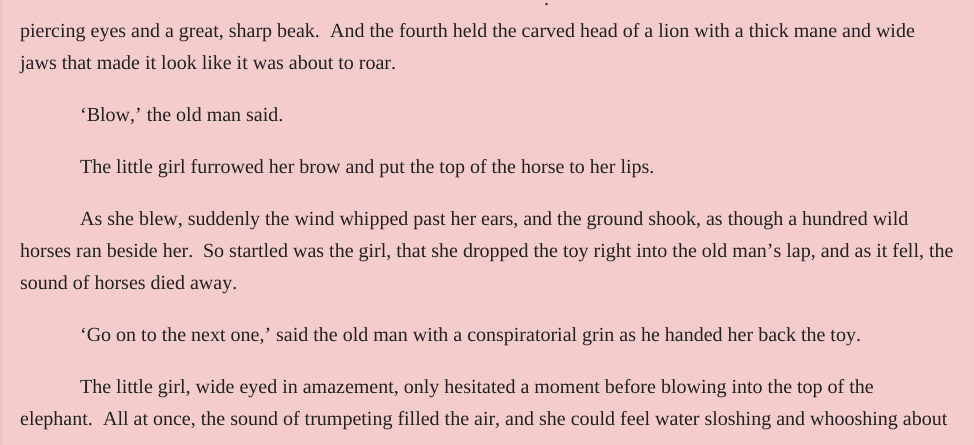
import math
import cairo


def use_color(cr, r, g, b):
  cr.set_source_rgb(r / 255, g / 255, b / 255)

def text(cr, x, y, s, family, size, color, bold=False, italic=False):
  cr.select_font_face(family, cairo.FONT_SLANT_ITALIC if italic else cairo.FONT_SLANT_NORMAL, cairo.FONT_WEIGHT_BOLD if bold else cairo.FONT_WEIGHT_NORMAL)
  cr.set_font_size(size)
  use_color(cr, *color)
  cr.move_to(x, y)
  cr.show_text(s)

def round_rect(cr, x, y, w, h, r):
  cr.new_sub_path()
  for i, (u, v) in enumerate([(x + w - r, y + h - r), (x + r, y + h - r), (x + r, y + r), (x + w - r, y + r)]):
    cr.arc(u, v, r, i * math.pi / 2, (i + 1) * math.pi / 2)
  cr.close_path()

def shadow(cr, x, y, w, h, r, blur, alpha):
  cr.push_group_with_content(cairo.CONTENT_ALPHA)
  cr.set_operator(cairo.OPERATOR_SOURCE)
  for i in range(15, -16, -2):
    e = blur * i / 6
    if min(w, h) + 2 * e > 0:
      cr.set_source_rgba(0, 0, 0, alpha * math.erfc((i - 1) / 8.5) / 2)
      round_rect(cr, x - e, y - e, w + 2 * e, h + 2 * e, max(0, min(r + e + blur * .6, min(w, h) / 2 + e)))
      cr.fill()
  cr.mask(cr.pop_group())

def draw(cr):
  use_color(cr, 244, 204, 204)
  cr.paint()
  use_color(cr, 0, 0, 0)
  shadow(cr, -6, 1, 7, 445, 0, 2, 0.1)
  text(cr, 544, 5, ".", "Liberation Serif", 20, (33, 33, 33))
  text(cr, 20, 37, "piercing eyes and a great, sharp beak.", "Liberation Serif", 20, (33, 33, 33))
  text(cr, 330, 37, "And the fourth held the carved head of a lion with a thick mane and wide", "Liberation Serif", 20, (33, 33, 33))
  text(cr, 20, 69, "jaws that made it look like it was about to roar.", "Liberation Serif", 20, (33, 33, 33))
  text(cr, 80, 121, "‘Blow,’ the old man said.", "Liberation Serif", 20, (33, 33, 33))
  text(cr, 80, 173, "The little girl furrowed her brow and put the top of the horse to her lips.", "Liberation Serif", 20, (33, 33, 33))
  text(cr, 80, 225, "As she blew, suddenly the wind whipped past her ears, and the ground shook, as though a hundred wild", "Liberation Serif", 20, (33, 33, 33))
  text(cr, 20, 257, "horses ran beside her.", "Liberation Serif", 20, (33, 33, 33))
  text(cr, 203, 257, "So startled was the girl, that she dropped the toy right into the old man’s lap, and as it fell, the", "Liberation Serif", 20, (33, 33, 33))
  text(cr, 20, 289, "sound of horses died away.", "Liberation Serif", 20, (33, 33, 33))
  text(cr, 80, 341, "‘Go on to the next one,’ said the old man with a conspiratorial grin as he handed her back the toy.", "Liberation Serif", 20, (33, 33, 33))
  text(cr, 80, 393, "The little girl, wide eyed in amazement, only hesitated a moment before blowing into the top of the", "Liberation Serif", 20, (33, 33, 33))
  text(cr, 20, 425, "elephant.", "Liberation Serif", 20, (33, 33, 33))
  text(cr, 103, 425, "All at once, the sound of trumpeting filled the air, and she could feel water sloshing and whooshing about", "Liberation Serif", 20, (33, 33, 33))


surface = cairo.ImageSurface(cairo.FORMAT_RGB24, 974, 445)
cr = cairo.Context(surface)
options = cairo.FontOptions()
options.set_hint_metrics(cairo.HINT_METRICS_OFF)
options.set_hint_style(cairo.HINT_STYLE_NONE)
cr.set_font_options(options)
cr.set_miter_limit(4)
draw(cr)
surface.write_to_png("out.png")
